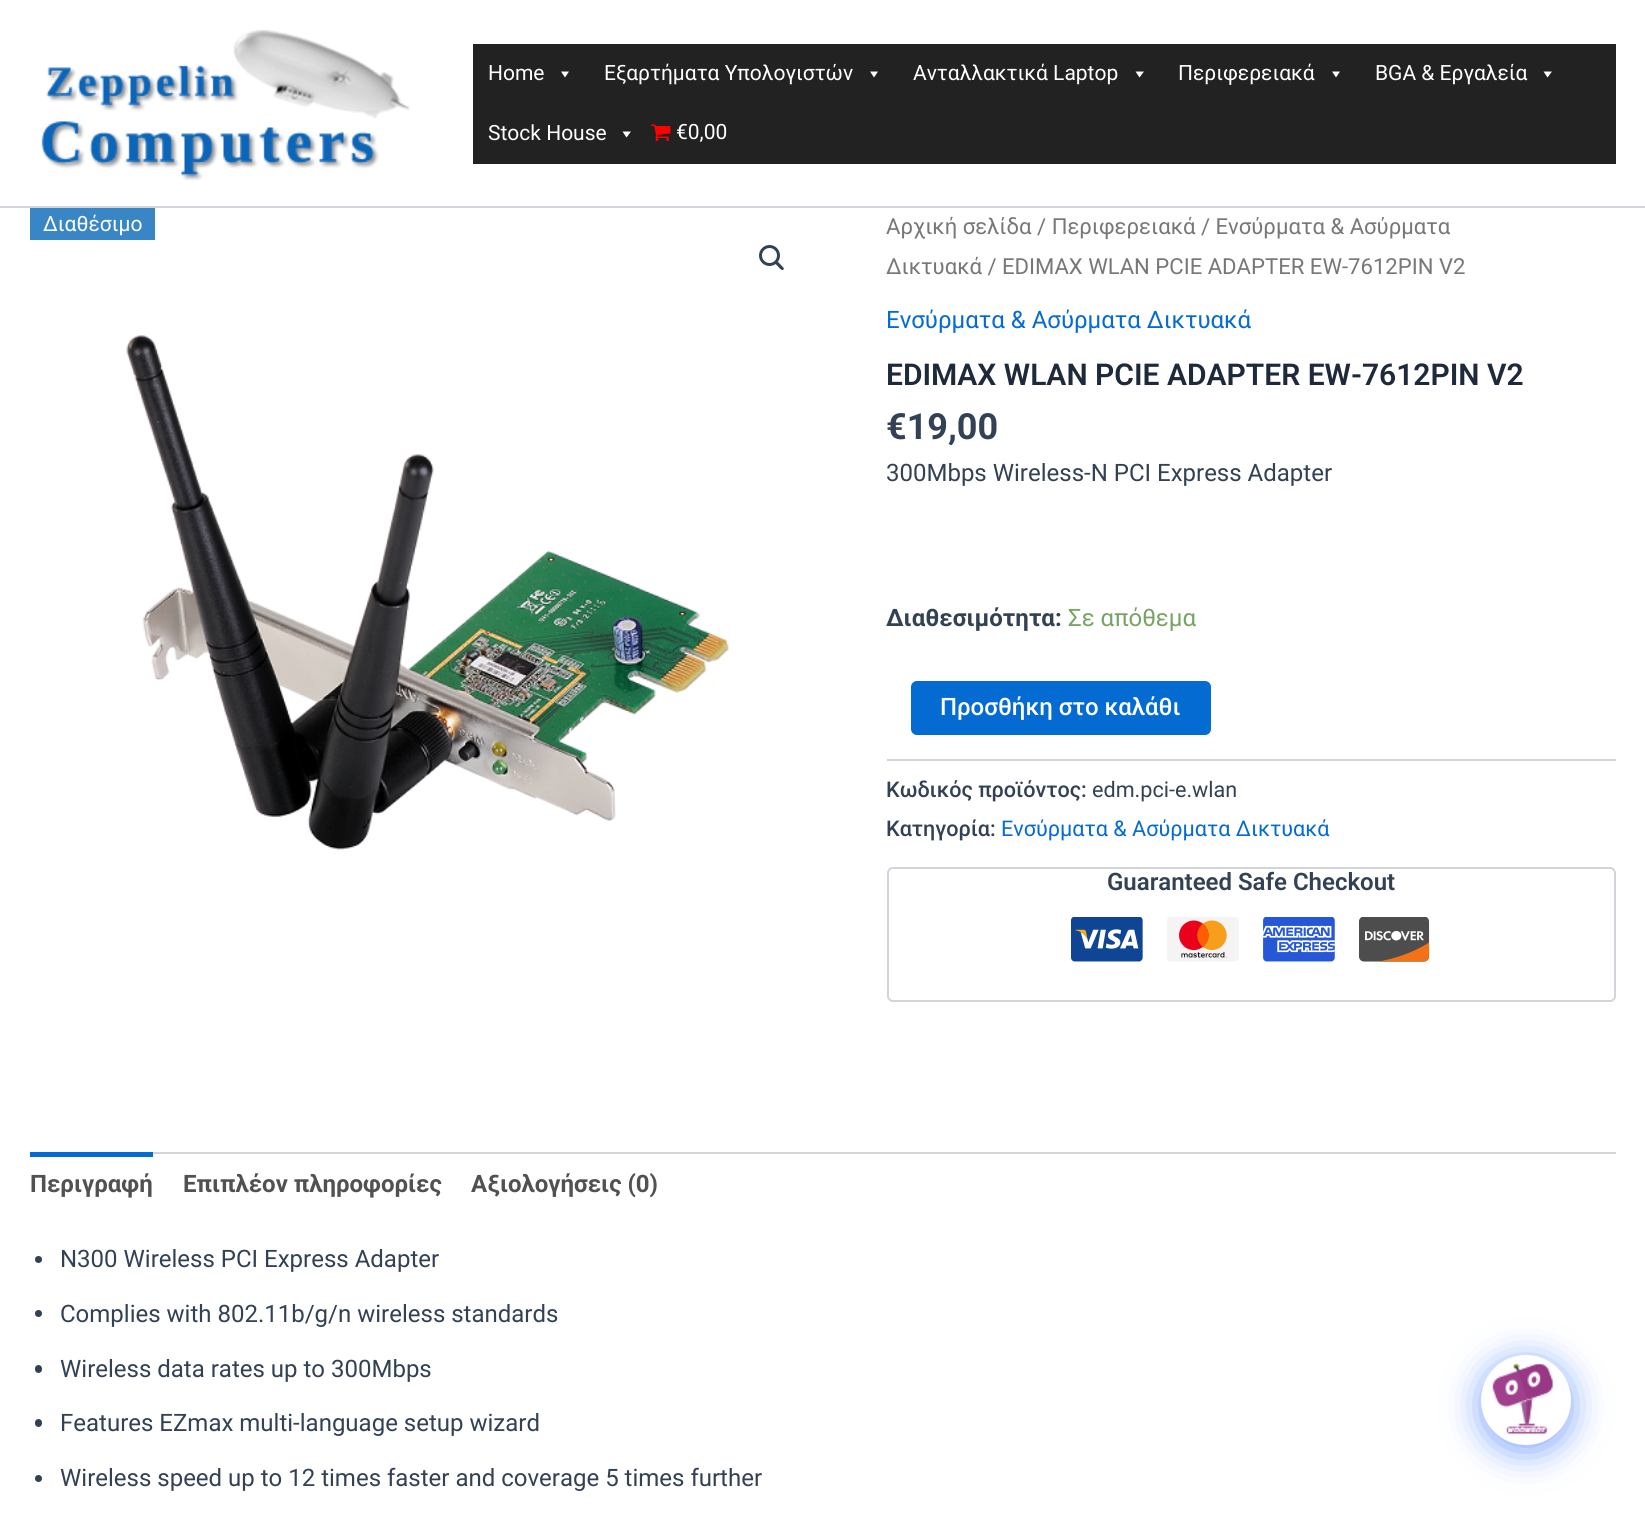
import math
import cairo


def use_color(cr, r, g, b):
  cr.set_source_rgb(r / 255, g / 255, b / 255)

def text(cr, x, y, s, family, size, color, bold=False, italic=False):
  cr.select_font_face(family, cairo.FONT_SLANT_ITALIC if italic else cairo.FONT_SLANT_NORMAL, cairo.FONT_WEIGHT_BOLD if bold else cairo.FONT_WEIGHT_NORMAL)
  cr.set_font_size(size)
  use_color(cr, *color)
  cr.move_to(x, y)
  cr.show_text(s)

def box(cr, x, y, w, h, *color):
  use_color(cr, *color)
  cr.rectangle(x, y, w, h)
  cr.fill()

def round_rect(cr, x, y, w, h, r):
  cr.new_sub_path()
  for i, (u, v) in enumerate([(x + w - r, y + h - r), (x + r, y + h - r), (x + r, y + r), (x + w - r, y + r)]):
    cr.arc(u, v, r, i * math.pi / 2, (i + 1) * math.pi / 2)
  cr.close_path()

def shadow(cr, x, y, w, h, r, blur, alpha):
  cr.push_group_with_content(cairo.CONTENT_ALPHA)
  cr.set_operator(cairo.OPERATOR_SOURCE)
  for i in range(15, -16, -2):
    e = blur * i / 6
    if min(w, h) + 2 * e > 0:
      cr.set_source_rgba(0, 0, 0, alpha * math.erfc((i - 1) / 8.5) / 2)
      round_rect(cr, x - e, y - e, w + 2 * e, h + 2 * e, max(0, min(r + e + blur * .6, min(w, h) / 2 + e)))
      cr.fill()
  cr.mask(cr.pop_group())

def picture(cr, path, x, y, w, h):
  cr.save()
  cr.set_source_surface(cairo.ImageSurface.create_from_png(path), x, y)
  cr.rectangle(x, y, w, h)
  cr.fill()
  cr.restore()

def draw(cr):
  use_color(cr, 255, 255, 255)
  cr.paint()
  box(cr, 0, 206, 1645, 2, 209, 213, 219)
  picture(cr, "img_01.png", 41, 29, 369, 152)
  box(cr, 473, 44, 1143, 120, 34, 34, 34)
  use_color(cr, 255, 255, 255)
  cr.new_path()
  cr.move_to(569, 71.5)
  cr.line_to(565, 77.5)
  cr.line_to(561, 71.5)
  cr.close_path()
  cr.fill()
  cr.new_path()
  cr.move_to(878, 71.5)
  cr.line_to(874, 77.5)
  cr.line_to(870, 71.5)
  cr.close_path()
  cr.fill()
  cr.new_path()
  cr.move_to(1144, 71.5)
  cr.line_to(1139.5, 77.5)
  cr.line_to(1135.5, 71.5)
  cr.close_path()
  cr.fill()
  cr.new_path()
  cr.move_to(1340, 71.5)
  cr.line_to(1336, 77.5)
  cr.line_to(1332, 71.5)
  cr.close_path()
  cr.fill()
  cr.new_path()
  cr.move_to(1552, 71.5)
  cr.line_to(1547.5, 77.5)
  cr.line_to(1543.5, 71.5)
  cr.close_path()
  cr.fill()
  cr.new_path()
  cr.move_to(631, 131.5)
  cr.line_to(626.5, 137.5)
  cr.line_to(622.5, 131.5)
  cr.close_path()
  cr.fill()
  picture(cr, "img_02.png", 651, 124, 20, 17)
  box(cr, 30, 208, 125, 32, 57, 134, 198)
  picture(cr, "img_03.png", 126, 335, 603, 515)
  cr.arc(769.5, 255.5, 9, 0, 2 * math.pi)
  use_color(cr, 51, 65, 85)
  cr.set_line_width(3)
  cr.stroke()
  cr.new_path()
  cr.move_to(775, 261.5)
  cr.curve_to(776.5, 259.5, 779.5, 263.5, 780.5, 264.5)
  cr.curve_to(781, 265.5, 785, 268, 783.5, 269.5)
  cr.curve_to(782, 271.5, 779, 267.5, 778, 266.5)
  cr.curve_to(777.5, 265.5, 773.5, 263, 775, 261.5)
  cr.close_path()
  cr.fill()
  use_color(cr, 4, 107, 210)
  round_rect(cr, 911, 681, 300, 54, 6)
  cr.fill()
  box(cr, 887, 759, 729, 2, 209, 213, 219)
  round_rect(cr, 888, 868, 727, 133, 5)
  cr.set_line_width(2)
  cr.stroke()
  picture(cr, "img_04.png", 1071, 917, 72, 45)
  picture(cr, "img_05.png", 1167, 917, 72, 45)
  picture(cr, "img_06.png", 1263, 917, 72, 45)
  picture(cr, "img_07.png", 1359, 917, 71, 45)
  box(cr, 153, 1152, 1463, 2, 209, 213, 219)
  box(cr, 30, 1152, 123, 5, 4, 107, 210)
  use_color(cr, 51, 65, 85)
  cr.arc(38.5, 1259.5, 3.5, 0, 2 * math.pi)
  cr.fill()
  cr.arc(38.5, 1313.5, 3.5, 0, 2 * math.pi)
  cr.fill()
  round_rect(cr, 35, 1365, 7, 8, 3.5)
  cr.fill()
  round_rect(cr, 35, 1419, 7, 8, 3.5)
  cr.fill()
  cr.arc(38.5, 1478.5, 3.5, 0, 2 * math.pi)
  cr.fill()
  use_color(cr, 0, 77, 255)
  shadow(cr, 1481, 1361, 90, 90, 45, 18, 0.5)
  use_color(cr, 255, 255, 255)
  cr.arc(1526, 1400, 45, 0, 2 * math.pi)
  cr.fill()
  picture(cr, "img_08.png", 1492, 1362, 62, 72)
  text(cr, 488, 80, "Home", "Roboto", 21, (255, 255, 255))
  text(cr, 604, 80, "Εξαρτήματα Υπολογιστών", "Roboto", 21, (255, 255, 255))
  text(cr, 913, 80, "Ανταλλακτικά Laptop", "Roboto", 21, (255, 255, 255))
  text(cr, 1178, 80, "Περιφερειακά", "Roboto", 21, (255, 255, 255))
  text(cr, 1375, 80, "BGA & Εργαλεία", "Roboto", 21, (255, 255, 255))
  text(cr, 488, 140, "Stock House", "Roboto", 21, (255, 255, 255))
  text(cr, 676, 139, "€0,00", "Roboto", 21, (255, 255, 255))
  text(cr, 43, 231, "Διαθέσιμο", "Roboto", 21, (255, 255, 255))
  text(cr, 886, 234, "Αρχική σελίδα / Περιφερειακά / Ενσύρματα & Ασύρματα", "Roboto", 22.1, (119, 119, 119))
  text(cr, 886, 274, "Δικτυακά / EDIMAX WLAN PCIE ADAPTER EW-7612PIN V2", "Roboto", 22.1, (119, 119, 119))
  text(cr, 886, 328, "Ενσύρματα & Ασύρματα Δικτυακά", "Roboto", 24, (4, 107, 210))
  text(cr, 886, 385, "EDIMAX WLAN PCIE ADAPTER EW-7612PIN V2", "Roboto SemiBold", 30, (30, 41, 59))
  text(cr, 886, 439, "€19,00", "Roboto", 36, (51, 65, 85), bold=True)
  text(cr, 886, 481, "300Mbps Wireless-N PCI Express Adapter", "Roboto", 24, (51, 65, 85))
  text(cr, 886, 626, "Διαθεσιμότητα:", "Roboto", 24, (51, 65, 85), bold=True)
  text(cr, 1068, 626, "Σε απόθεμα", "Roboto", 24, (119, 164, 100))
  text(cr, 940, 715, "Προσθήκη στο καλάθι", "Roboto Medium", 24, (255, 255, 255))
  text(cr, 886, 797, "Κωδικός προϊόντος:", "Roboto Medium", 21.6, (51, 65, 85))
  text(cr, 1092, 797, "edm.pci-e.wlan", "Roboto", 21.6, (51, 65, 85))
  text(cr, 886, 836, "Κατηγορία:", "Roboto Medium", 21.6, (51, 65, 85))
  text(cr, 1001, 836, "Ενσύρματα & Ασύρματα Δικτυακά", "Roboto", 21.6, (4, 107, 210))
  text(cr, 1107, 890, "Guaranteed Safe Checkout", "Roboto SemiBold", 24, (51, 65, 85))
  text(cr, 30, 1192, "Περιγραφή", "Roboto", 24, (81, 81, 81), bold=True)
  text(cr, 183, 1192, "Επιπλέον πληροφορίες", "Roboto", 24, (81, 81, 81), bold=True)
  text(cr, 471, 1192, "Αξιολογήσεις (0)", "Roboto", 24, (81, 81, 81), bold=True)
  text(cr, 60, 1267, "N300 Wireless PCI Express Adapter", "Roboto", 24, (51, 65, 85))
  text(cr, 60, 1322, "Complies with 802.11b/g/n wireless standards", "Roboto", 24, (51, 65, 85))
  text(cr, 60, 1377, "Wireless data rates up to 300Mbps", "Roboto", 24, (51, 65, 85))
  text(cr, 60, 1431, "Features EZmax multi-language setup wizard", "Roboto", 24, (51, 65, 85))
  text(cr, 60, 1486, "Wireless speed up to 12 times faster and coverage 5 times further", "Roboto", 24, (51, 65, 85))


surface = cairo.ImageSurface(cairo.FORMAT_RGB24, 1645, 1519)
cr = cairo.Context(surface)
options = cairo.FontOptions()
options.set_hint_metrics(cairo.HINT_METRICS_OFF)
options.set_hint_style(cairo.HINT_STYLE_NONE)
cr.set_font_options(options)
cr.set_miter_limit(4)
draw(cr)
surface.write_to_png("out.png")
